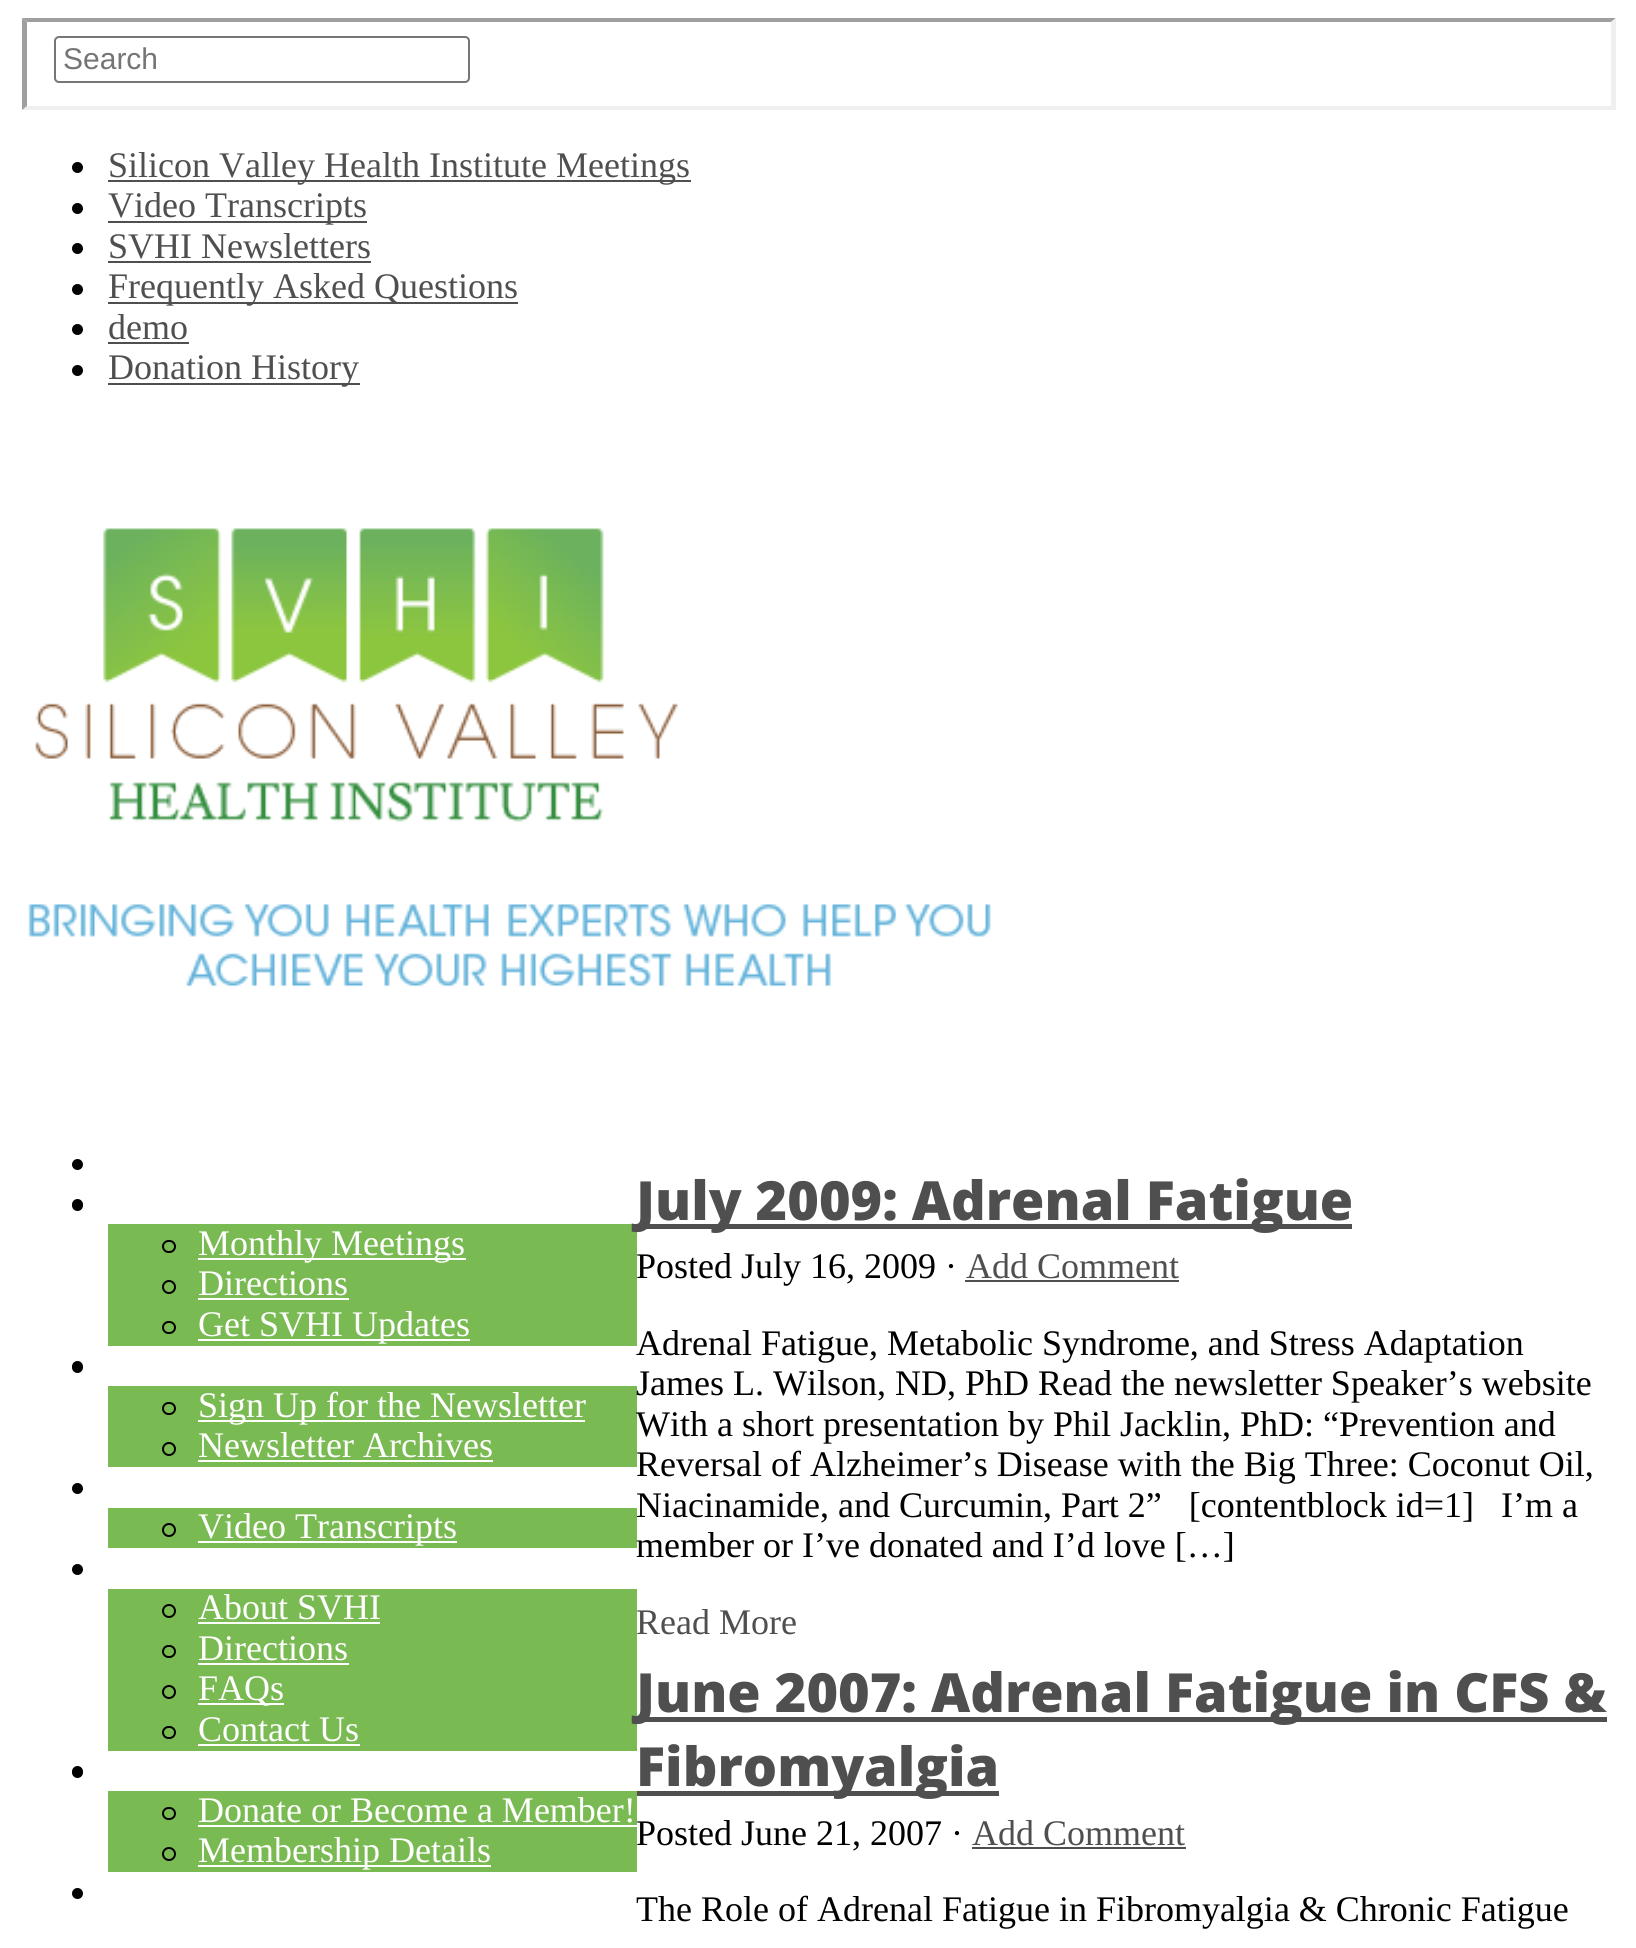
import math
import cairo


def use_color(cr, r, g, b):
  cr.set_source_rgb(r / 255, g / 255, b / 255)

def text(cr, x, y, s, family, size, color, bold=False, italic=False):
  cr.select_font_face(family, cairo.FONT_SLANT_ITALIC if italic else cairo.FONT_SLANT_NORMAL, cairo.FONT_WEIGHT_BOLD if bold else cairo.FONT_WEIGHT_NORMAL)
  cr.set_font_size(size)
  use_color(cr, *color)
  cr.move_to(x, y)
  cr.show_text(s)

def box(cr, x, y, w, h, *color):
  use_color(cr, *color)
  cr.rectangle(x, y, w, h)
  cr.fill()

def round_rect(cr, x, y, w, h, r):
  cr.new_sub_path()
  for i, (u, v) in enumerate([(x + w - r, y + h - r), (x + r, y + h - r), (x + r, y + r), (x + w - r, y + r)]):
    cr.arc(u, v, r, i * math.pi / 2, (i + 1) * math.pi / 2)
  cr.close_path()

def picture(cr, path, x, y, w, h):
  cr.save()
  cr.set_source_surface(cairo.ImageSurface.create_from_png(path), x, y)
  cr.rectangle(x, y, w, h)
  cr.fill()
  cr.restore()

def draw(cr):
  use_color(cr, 255, 255, 255)
  cr.paint()
  use_color(cr, 159, 159, 159)
  cr.new_path()
  cr.move_to(22, 18)
  cr.line_to(1616, 18)
  cr.line_to(1611, 22)
  cr.line_to(27, 22)
  cr.close_path()
  cr.fill()
  use_color(cr, 239, 239, 239)
  cr.new_path()
  cr.move_to(1616, 18)
  cr.line_to(1616, 110)
  cr.line_to(1611, 106)
  cr.line_to(1611, 22)
  cr.close_path()
  cr.fill()
  cr.new_path()
  cr.move_to(1616, 110)
  cr.line_to(22, 110)
  cr.line_to(27, 106)
  cr.line_to(1611, 106)
  cr.close_path()
  cr.fill()
  use_color(cr, 159, 159, 159)
  cr.new_path()
  cr.move_to(22, 110)
  cr.line_to(22, 18)
  cr.line_to(27, 22)
  cr.line_to(27, 106)
  cr.close_path()
  cr.fill()
  round_rect(cr, 55, 37, 414, 45, 4)
  use_color(cr, 118, 118, 118)
  cr.stroke()
  use_color(cr, 0, 0, 0)
  cr.arc(77.5, 167.5, 5.5, 0, 2 * math.pi)
  cr.fill()
  box(cr, 108, 180, 583, 2, 79, 79, 79)
  use_color(cr, 0, 0, 0)
  cr.arc(77.5, 208.5, 5.5, 0, 2 * math.pi)
  cr.fill()
  box(cr, 108, 221, 259, 2, 79, 79, 79)
  use_color(cr, 0, 0, 0)
  cr.arc(77.5, 248.5, 5.5, 0, 2 * math.pi)
  cr.fill()
  box(cr, 108, 261, 263, 2, 79, 79, 79)
  use_color(cr, 0, 0, 0)
  cr.arc(77.5, 289.5, 5.5, 0, 2 * math.pi)
  cr.fill()
  box(cr, 108, 302, 410, 2, 79, 79, 79)
  use_color(cr, 0, 0, 0)
  cr.arc(77.5, 329.5, 5.5, 0, 2 * math.pi)
  cr.fill()
  box(cr, 108, 342, 81, 2, 79, 79, 79)
  use_color(cr, 0, 0, 0)
  cr.arc(77.5, 370.5, 5.5, 0, 2 * math.pi)
  cr.fill()
  box(cr, 108, 383, 252, 2, 79, 79, 79)
  picture(cr, "img_01.png", 35, 528, 643, 294)
  picture(cr, "img_02.png", 28, 904, 963, 83)
  use_color(cr, 0, 0, 0)
  cr.arc(77.5, 1164.5, 5.5, 0, 2 * math.pi)
  cr.fill()
  round_rect(cr, 72, 1199, 11, 12, 5.5)
  cr.fill()
  box(cr, 108, 1224, 529, 122, 122, 186, 82)
  round_rect(cr, 163, 1241, 12, 11, 5.5)
  use_color(cr, 0, 0, 0)
  cr.stroke()
  box(cr, 198, 1258, 268, 2, 255, 255, 255)
  cr.arc(169, 1287, 6, 0, 2 * math.pi)
  use_color(cr, 0, 0, 0)
  cr.stroke()
  box(cr, 198, 1298, 151, 2, 255, 255, 255)
  round_rect(cr, 163, 1322, 12, 11, 5.5)
  use_color(cr, 0, 0, 0)
  cr.stroke()
  box(cr, 198, 1339, 272, 2, 255, 255, 255)
  use_color(cr, 0, 0, 0)
  round_rect(cr, 72, 1361, 11, 12, 5.5)
  cr.fill()
  box(cr, 108, 1386, 529, 81, 122, 186, 82)
  round_rect(cr, 163, 1403, 12, 11, 5.5)
  use_color(cr, 0, 0, 0)
  cr.stroke()
  box(cr, 198, 1420, 387, 2, 255, 255, 255)
  cr.arc(169, 1449, 6, 0, 2 * math.pi)
  use_color(cr, 0, 0, 0)
  cr.stroke()
  box(cr, 198, 1460, 295, 2, 255, 255, 255)
  use_color(cr, 0, 0, 0)
  cr.arc(77.5, 1488.5, 5.5, 0, 2 * math.pi)
  cr.fill()
  box(cr, 108, 1508, 529, 40, 122, 186, 82)
  cr.arc(169, 1530, 6, 0, 2 * math.pi)
  use_color(cr, 0, 0, 0)
  cr.stroke()
  box(cr, 198, 1541, 259, 2, 255, 255, 255)
  use_color(cr, 0, 0, 0)
  cr.arc(77.5, 1569.5, 5.5, 0, 2 * math.pi)
  cr.fill()
  box(cr, 108, 1589, 529, 162, 122, 186, 82)
  cr.arc(169, 1611, 6, 0, 2 * math.pi)
  use_color(cr, 0, 0, 0)
  cr.stroke()
  box(cr, 198, 1622, 182, 2, 255, 255, 255)
  round_rect(cr, 163, 1646, 12, 11, 5.5)
  use_color(cr, 0, 0, 0)
  cr.stroke()
  box(cr, 198, 1663, 151, 2, 255, 255, 255)
  cr.arc(169, 1692, 6, 0, 2 * math.pi)
  use_color(cr, 0, 0, 0)
  cr.stroke()
  box(cr, 198, 1703, 86, 2, 255, 255, 255)
  round_rect(cr, 163, 1727, 12, 11, 5.5)
  use_color(cr, 0, 0, 0)
  cr.stroke()
  box(cr, 198, 1744, 162, 2, 255, 255, 255)
  use_color(cr, 0, 0, 0)
  round_rect(cr, 72, 1766, 11, 12, 5.5)
  cr.fill()
  box(cr, 108, 1791, 529, 81, 122, 186, 82)
  round_rect(cr, 163, 1808, 12, 11, 5.5)
  use_color(cr, 0, 0, 0)
  cr.stroke()
  box(cr, 198, 1825, 439, 2, 255, 255, 255)
  cr.arc(169, 1854, 6, 0, 2 * math.pi)
  use_color(cr, 0, 0, 0)
  cr.stroke()
  box(cr, 198, 1865, 293, 2, 255, 255, 255)
  use_color(cr, 0, 0, 0)
  cr.arc(77.5, 1893.5, 5.5, 0, 2 * math.pi)
  cr.fill()
  box(cr, 637, 1224, 715, 5, 79, 79, 79)
  box(cr, 965, 1280, 214, 2, 79, 79, 79)
  box(cr, 637, 1717, 970, 5, 79, 79, 79)
  box(cr, 637, 1791, 362, 5, 79, 79, 79)
  box(cr, 972, 1847, 214, 2, 79, 79, 79)
  text(cr, 63, 69, "Search", "Liberation Sans", 30, (117, 117, 117))
  text(cr, 108, 177, "Silicon Valley Health Institute Meetings", "Liberation Serif", 36, (79, 79, 79))
  text(cr, 108, 217, "Video Transcripts", "Liberation Serif", 36, (79, 79, 79))
  text(cr, 108, 258, "SVHI Newsletters", "Liberation Serif", 36, (79, 79, 79))
  text(cr, 108, 298, "Frequently Asked Questions", "Liberation Serif", 36, (79, 79, 79))
  text(cr, 108, 339, "demo", "Liberation Serif", 36, (79, 79, 79))
  text(cr, 108, 379, "Donation History", "Liberation Serif", 36, (79, 79, 79))
  text(cr, 198, 1255, "Monthly Meetings", "Liberation Serif", 36, (255, 255, 255))
  text(cr, 198, 1295, "Directions", "Liberation Serif", 36, (255, 255, 255))
  text(cr, 198, 1336, "Get SVHI Updates", "Liberation Serif", 36, (255, 255, 255))
  text(cr, 198, 1417, "Sign Up for the Newsletter", "Liberation Serif", 36, (255, 255, 255))
  text(cr, 198, 1457, "Newsletter Archives", "Liberation Serif", 36, (255, 255, 255))
  text(cr, 198, 1538, "Video Transcripts", "Liberation Serif", 36, (255, 255, 255))
  text(cr, 198, 1619, "About SVHI", "Liberation Serif", 36, (255, 255, 255))
  text(cr, 198, 1660, "Directions", "Liberation Serif", 36, (255, 255, 255))
  text(cr, 198, 1700, "FAQs", "Liberation Serif", 36, (255, 255, 255))
  text(cr, 198, 1741, "Contact Us", "Liberation Serif", 36, (255, 255, 255))
  text(cr, 198, 1822, "Donate or Become a Member!", "Liberation Serif", 36, (255, 255, 255))
  text(cr, 198, 1862, "Membership Details", "Liberation Serif", 36, (255, 255, 255))
  text(cr, 636, 1220, "July 2009: Adrenal Fatigue", "Open Sans ExtraBold", 54, (79, 79, 79))
  text(cr, 636, 1278, "Posted July 16, 2009 ·", "Liberation Serif", 36, (0, 0, 0))
  text(cr, 966, 1278, "Add Comment", "Liberation Serif", 36, (79, 79, 79))
  text(cr, 636, 1355, "Adrenal Fatigue, Metabolic Syndrome, and Stress Adaptation", "Liberation Serif", 36, (0, 0, 0))
  text(cr, 636, 1395, "James L. Wilson, ND, PhD Read the newsletter Speaker’s website", "Liberation Serif", 36, (0, 0, 0))
  text(cr, 636, 1436, "With a short presentation by Phil Jacklin, PhD: “Prevention and", "Liberation Serif", 36, (0, 0, 0))
  text(cr, 636, 1476, "Reversal of Alzheimer’s Disease with the Big Three: Coconut Oil,", "Liberation Serif", 36, (0, 0, 0))
  text(cr, 636, 1517, "Niacinamide, and Curcumin, Part 2”   [contentblock id=1]   I’m a", "Liberation Serif", 36, (0, 0, 0))
  text(cr, 636, 1557, "member or I’ve donated and I’d love […]", "Liberation Serif", 36, (0, 0, 0))
  text(cr, 636, 1634, "Read More", "Liberation Serif", 36, (79, 79, 79))
  text(cr, 636, 1712, "June 2007: Adrenal Fatigue in CFS &", "Open Sans ExtraBold", 54, (79, 79, 79))
  text(cr, 636, 1786, "Fibromyalgia", "Open Sans ExtraBold", 54, (79, 79, 79))
  text(cr, 636, 1845, "Posted June 21, 2007 ·", "Liberation Serif", 36, (0, 0, 0))
  text(cr, 972, 1845, "Add Comment", "Liberation Serif", 36, (79, 79, 79))
  text(cr, 636, 1921, "The Role of Adrenal Fatigue in Fibromyalgia & Chronic Fatigue", "Liberation Serif", 36, (0, 0, 0))


surface = cairo.ImageSurface(cairo.FORMAT_RGB24, 1636, 1948)
cr = cairo.Context(surface)
options = cairo.FontOptions()
options.set_hint_metrics(cairo.HINT_METRICS_OFF)
options.set_hint_style(cairo.HINT_STYLE_NONE)
cr.set_font_options(options)
cr.set_miter_limit(4)
draw(cr)
surface.write_to_png("out.png")
